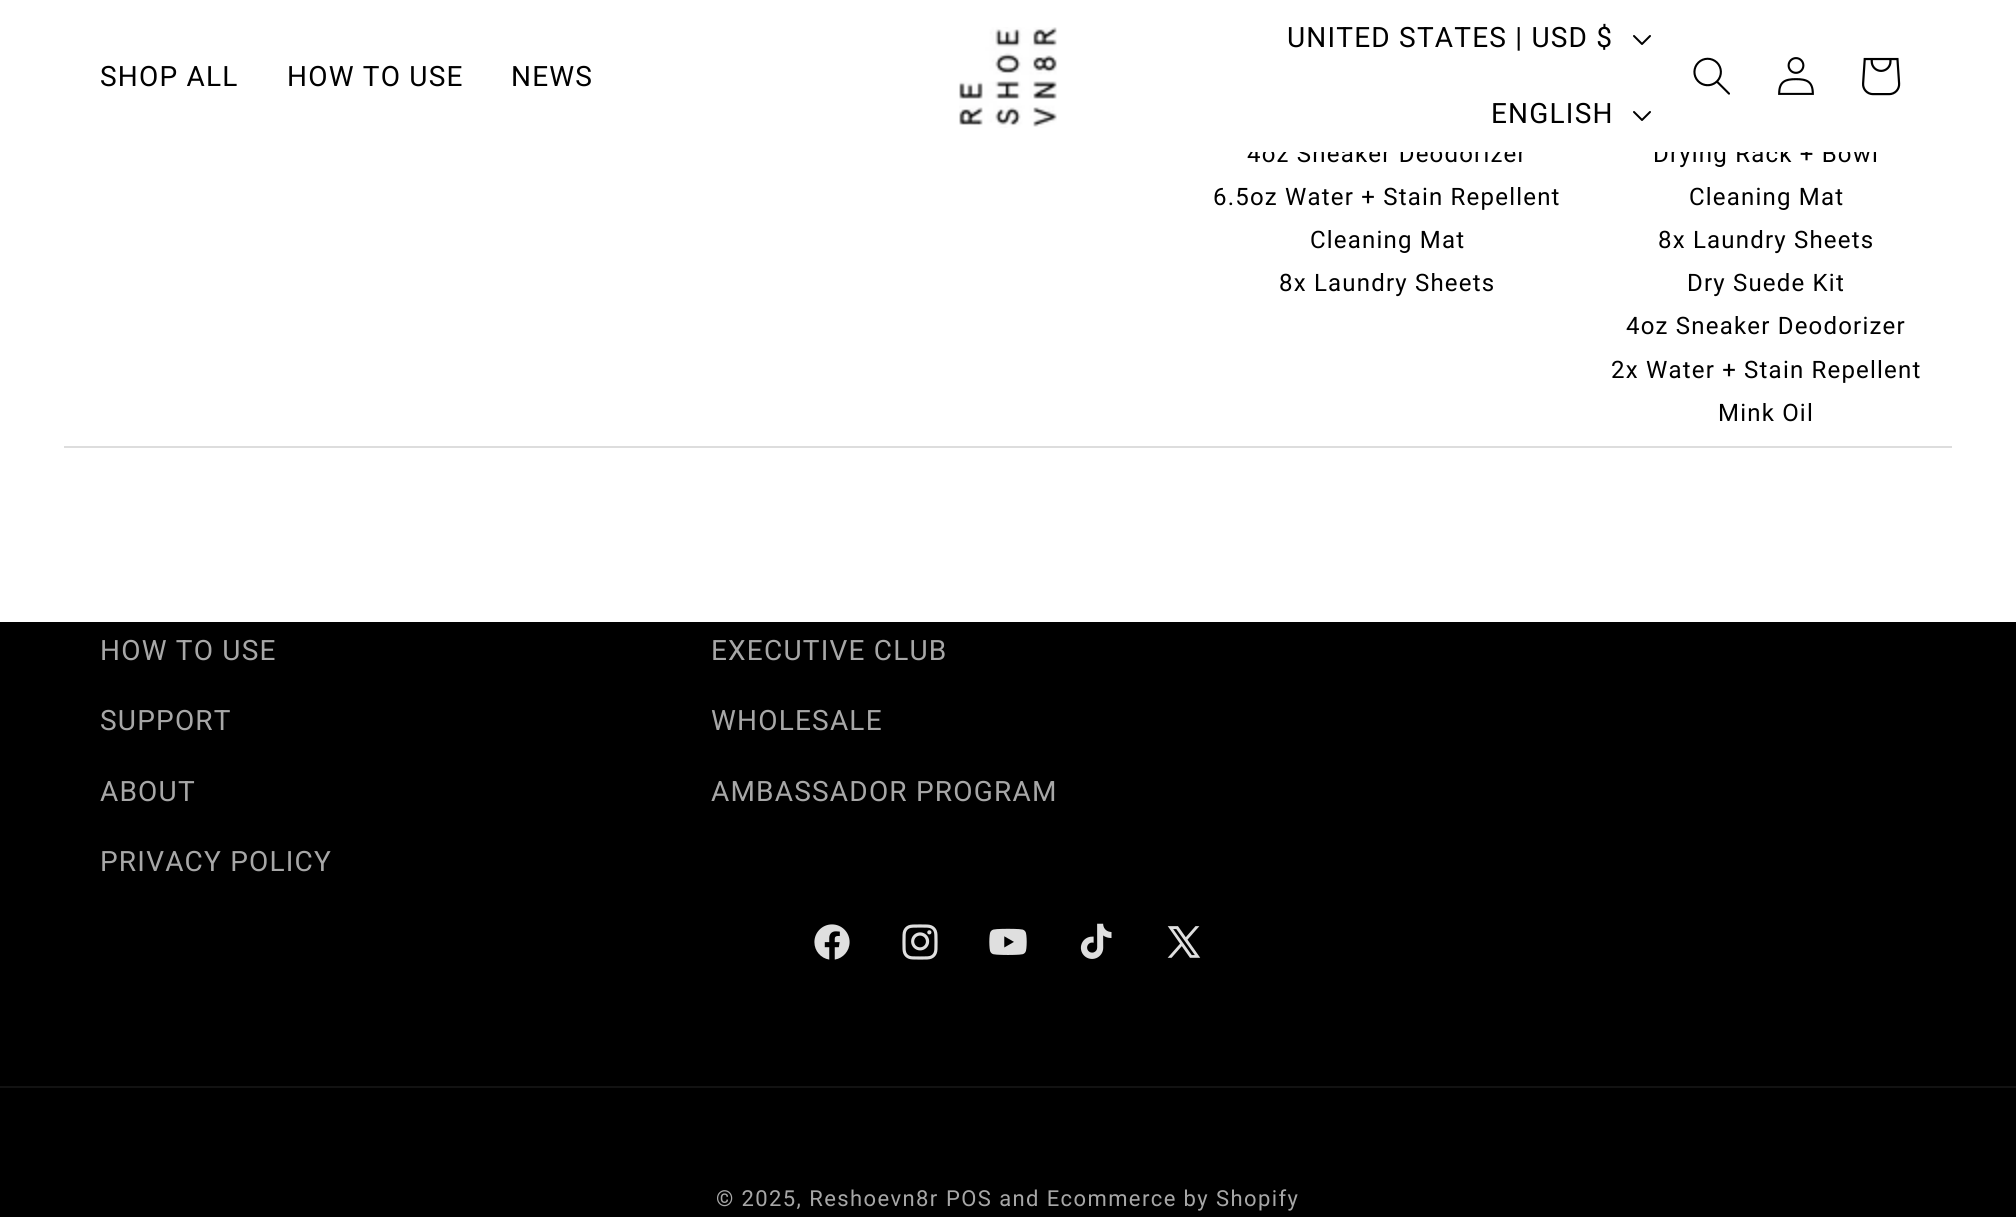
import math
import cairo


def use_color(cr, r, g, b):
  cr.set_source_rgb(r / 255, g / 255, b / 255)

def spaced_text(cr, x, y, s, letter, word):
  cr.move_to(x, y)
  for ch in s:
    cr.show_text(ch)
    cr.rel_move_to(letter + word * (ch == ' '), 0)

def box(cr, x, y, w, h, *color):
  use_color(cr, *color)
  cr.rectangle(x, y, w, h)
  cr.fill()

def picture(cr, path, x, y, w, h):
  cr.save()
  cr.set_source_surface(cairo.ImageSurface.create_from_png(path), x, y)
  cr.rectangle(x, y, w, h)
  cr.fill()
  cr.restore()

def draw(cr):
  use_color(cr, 255, 255, 255)
  cr.paint()
  picture(cr, "img_01.png", 959, 27, 98, 101)
  picture(cr, "img_02.png", 1633, 35, 18, 10)
  picture(cr, "img_02.png", 1633, 111, 18, 10)
  picture(cr, "img_03.png", 1693, 57, 37, 38)
  picture(cr, "img_04.png", 1778, 57, 36, 38)
  picture(cr, "img_05.png", 1862, 57, 39, 39)
  box(cr, 64, 446, 1888, 2, 221, 221, 221)
  box(cr, 0, 622, 2016, 595, 0, 0, 0)
  picture(cr, "img_06.png", 814, 924, 36, 36)
  picture(cr, "img_07.png", 902, 924, 36, 36)
  picture(cr, "img_08.png", 989, 928, 38, 27)
  picture(cr, "img_09.png", 1080, 923, 32, 36)
  picture(cr, "img_10.png", 1167, 926, 34, 32)
  box(cr, 0, 1086, 2016, 2, 18, 18, 18)
  cr.select_font_face("Roboto")
  cr.set_font_size(28)
  use_color(cr, 0, 0, 0)
  spaced_text(cr, 100, 86, "SHOP ALL", 1.2, 0)
  spaced_text(cr, 287, 86, "HOW TO USE", 1.2, 0)
  spaced_text(cr, 511, 86, "NEWS", 1.2, 0)
  spaced_text(cr, 1287, 47, "UNITED STATES | USD $", 1.2, 0)
  spaced_text(cr, 1491, 123, "ENGLISH", 1.2, 0)
  cr.set_font_size(24)
  spaced_text(cr, 1247, 162, "4oz Sneaker Deodorizer", 1.2, 0)
  spaced_text(cr, 1213, 205, "6.5oz Water + Stain Repellent", 1.2, 0)
  spaced_text(cr, 1310, 248, "Cleaning Mat", 1.2, 0)
  spaced_text(cr, 1279, 291, "8x Laundry Sheets", 1.2, 0)
  spaced_text(cr, 1653, 162, "Drying Rack + Bowl", 1.2, 0)
  box(cr, 1251, 144, 626, 8, 255, 255, 255)
  use_color(cr, 0, 0, 0)
  spaced_text(cr, 1689, 205, "Cleaning Mat", 1.2, 0)
  spaced_text(cr, 1658, 248, "8x Laundry Sheets", 1.2, 0)
  spaced_text(cr, 1687, 291, "Dry Suede Kit", 1.2, 0)
  spaced_text(cr, 1626, 334, "4oz Sneaker Deodorizer", 1.2, 0)
  spaced_text(cr, 1611, 378, "2x Water + Stain Repellent", 1.2, 0)
  spaced_text(cr, 1718, 421, "Mink Oil", 1.2, 0)
  cr.set_font_size(28)
  use_color(cr, 167, 167, 167)
  spaced_text(cr, 100, 660, "HOW TO USE", 1.2, 0)
  spaced_text(cr, 100, 730, "SUPPORT", 1.2, 0)
  spaced_text(cr, 100, 801, "ABOUT", 1.2, 0)
  spaced_text(cr, 100, 871, "PRIVACY POLICY", 1.2, 0)
  spaced_text(cr, 711, 660, "EXECUTIVE CLUB", 1.2, 0)
  spaced_text(cr, 711, 730, "WHOLESALE", 1.2, 0)
  spaced_text(cr, 711, 801, "AMBASSADOR PROGRAM", 1.2, 0)
  cr.set_font_size(22)
  spaced_text(cr, 716, 1206, "© 2025, Reshoevn8r", 1.4, 0)
  spaced_text(cr, 946, 1206, "POS and Ecommerce by Shopify", 1.4, 0)


surface = cairo.ImageSurface(cairo.FORMAT_RGB24, 2016, 1217)
cr = cairo.Context(surface)
options = cairo.FontOptions()
options.set_hint_metrics(cairo.HINT_METRICS_OFF)
options.set_hint_style(cairo.HINT_STYLE_NONE)
cr.set_font_options(options)
cr.set_miter_limit(4)
draw(cr)
surface.write_to_png("out.png")
